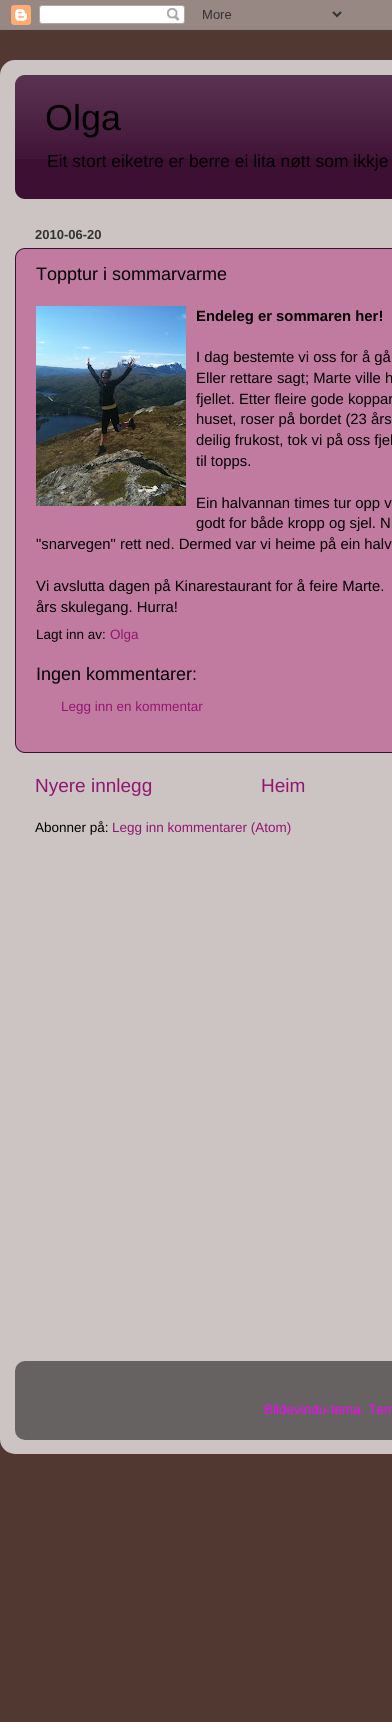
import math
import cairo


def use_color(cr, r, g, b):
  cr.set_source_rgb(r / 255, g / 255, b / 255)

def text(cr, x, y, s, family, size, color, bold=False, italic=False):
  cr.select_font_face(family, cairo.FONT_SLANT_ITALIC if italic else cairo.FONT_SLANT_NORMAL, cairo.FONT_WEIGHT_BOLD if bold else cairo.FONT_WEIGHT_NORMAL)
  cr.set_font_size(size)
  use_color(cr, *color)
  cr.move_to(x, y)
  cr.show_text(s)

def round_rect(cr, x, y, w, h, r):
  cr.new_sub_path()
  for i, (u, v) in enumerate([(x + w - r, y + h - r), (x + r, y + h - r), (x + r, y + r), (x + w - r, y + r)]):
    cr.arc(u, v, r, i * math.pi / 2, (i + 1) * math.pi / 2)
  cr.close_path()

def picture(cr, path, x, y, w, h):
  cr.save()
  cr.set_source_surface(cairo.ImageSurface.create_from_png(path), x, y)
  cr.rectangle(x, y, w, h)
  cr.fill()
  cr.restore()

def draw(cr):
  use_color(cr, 81, 56, 49)
  cr.paint()
  picture(cr, "img_01.png", 0, 0, 392, 30)
  picture(cr, "img_02.png", 0, 60, 392, 1394)
  use_color(cr, 61, 15, 51)
  round_rect(cr, 15, 75, 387, 124, 10)
  cr.fill()
  picture(cr, "img_03.png", 15, 75, 377, 84)
  use_color(cr, 194, 123, 160)
  round_rect(cr, 15.5, 248.5, 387, 504, 9.5)
  cr.fill_preserve()
  use_color(cr, 61, 15, 51)
  cr.set_line_width(1)
  cr.stroke()
  picture(cr, "img_04.png", 36, 306, 150, 200)
  picture(cr, "img_05.png", 15, 1361, 377, 79)
  text(cr, 45, 130, "Olga", "Liberation Sans", 36, (0, 0, 0))
  text(cr, 47, 167, "Eit stort eiketre er berre ei lita nøtt som ikkje", "Liberation Sans", 17.5, (0, 0, 0))
  text(cr, 35, 239, "2010-06-20", "Liberation Sans", 13, (51, 51, 51), bold=True)
  text(cr, 36, 280, "Topptur i sommarvarme", "Liberation Sans", 18, (0, 0, 0))
  text(cr, 196, 321, "Endeleg er sommaren her!", "Liberation Sans", 14.85, (0, 0, 0), bold=True)
  text(cr, 196, 362, "I dag bestemte vi oss for å gå", "Liberation Sans", 14.85, (0, 0, 0))
  text(cr, 196, 383, "Eller rettare sagt; Marte ville h", "Liberation Sans", 14.85, (0, 0, 0))
  text(cr, 196, 404, "fjellet. Etter fleire gode koppar", "Liberation Sans", 14.85, (0, 0, 0))
  text(cr, 196, 424, "huset, roser på bordet (23 års", "Liberation Sans", 14.85, (0, 0, 0))
  text(cr, 196, 445, "deilig frukost, tok vi på oss fjel", "Liberation Sans", 14.85, (0, 0, 0))
  text(cr, 196, 466, "til topps.", "Liberation Sans", 14.85, (0, 0, 0))
  text(cr, 196, 508, "Ein halvannan times tur opp v", "Liberation Sans", 14.85, (0, 0, 0))
  text(cr, 196, 528, "godt for både kropp og sjel. N", "Liberation Sans", 14.85, (0, 0, 0))
  text(cr, 36, 549, "\"snarvegen\" rett ned. Dermed var vi heime på ein halv", "Liberation Sans", 14.85, (0, 0, 0))
  text(cr, 36, 591, "Vi avslutta dagen på Kinarestaurant for å feire Marte.", "Liberation Sans", 14.85, (0, 0, 0))
  text(cr, 36, 612, "års skulegang. Hurra!", "Liberation Sans", 14.85, (0, 0, 0))
  text(cr, 36, 639, "Lagt inn av:", "Liberation Sans", 13.5, (0, 0, 0))
  text(cr, 110, 639, "Olga", "Liberation Sans", 13.5, (146, 21, 114))
  text(cr, 36, 680, "Ingen kommentarer:", "Liberation Sans", 18, (0, 0, 0))
  text(cr, 61, 711, "Legg inn en kommentar", "Liberation Sans", 13.5, (146, 21, 114))
  text(cr, 35, 792, "Nyere innlegg", "Liberation Sans", 19, (146, 21, 114))
  text(cr, 261, 792, "Heim", "Liberation Sans", 19, (146, 21, 114))
  text(cr, 35, 832, "Abonner på:", "Liberation Sans", 13.5, (0, 0, 0))
  text(cr, 112, 832, "Legg inn kommentarer (Atom)", "Liberation Sans", 13.5, (146, 21, 114))
  text(cr, 264, 1414, "Bildevindu-tema. Tem", "Liberation Sans", 13.5, (255, 0, 255))


surface = cairo.ImageSurface(cairo.FORMAT_RGB24, 392, 1722)
cr = cairo.Context(surface)
options = cairo.FontOptions()
options.set_hint_metrics(cairo.HINT_METRICS_OFF)
options.set_hint_style(cairo.HINT_STYLE_NONE)
cr.set_font_options(options)
cr.set_miter_limit(4)
draw(cr)
surface.write_to_png("out.png")
